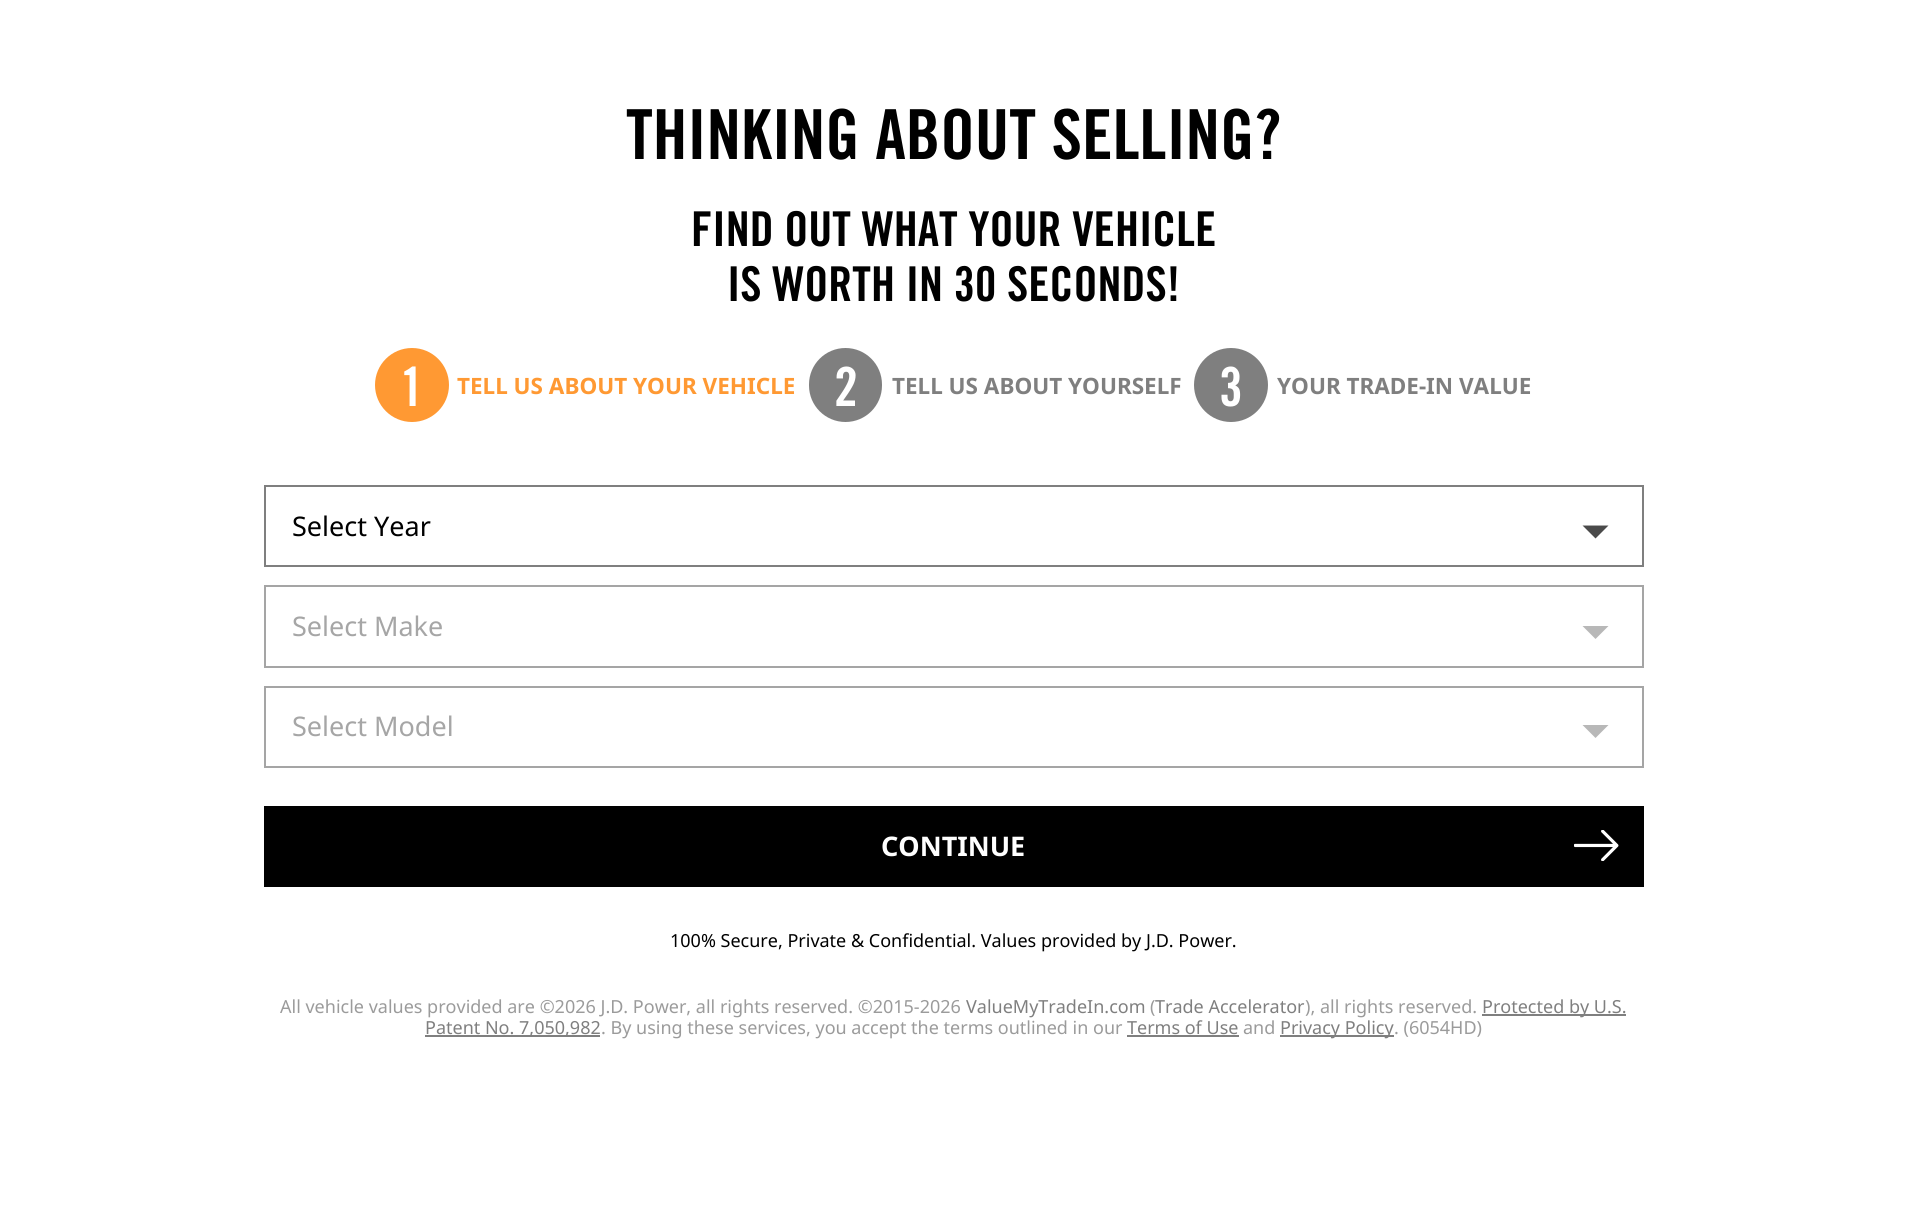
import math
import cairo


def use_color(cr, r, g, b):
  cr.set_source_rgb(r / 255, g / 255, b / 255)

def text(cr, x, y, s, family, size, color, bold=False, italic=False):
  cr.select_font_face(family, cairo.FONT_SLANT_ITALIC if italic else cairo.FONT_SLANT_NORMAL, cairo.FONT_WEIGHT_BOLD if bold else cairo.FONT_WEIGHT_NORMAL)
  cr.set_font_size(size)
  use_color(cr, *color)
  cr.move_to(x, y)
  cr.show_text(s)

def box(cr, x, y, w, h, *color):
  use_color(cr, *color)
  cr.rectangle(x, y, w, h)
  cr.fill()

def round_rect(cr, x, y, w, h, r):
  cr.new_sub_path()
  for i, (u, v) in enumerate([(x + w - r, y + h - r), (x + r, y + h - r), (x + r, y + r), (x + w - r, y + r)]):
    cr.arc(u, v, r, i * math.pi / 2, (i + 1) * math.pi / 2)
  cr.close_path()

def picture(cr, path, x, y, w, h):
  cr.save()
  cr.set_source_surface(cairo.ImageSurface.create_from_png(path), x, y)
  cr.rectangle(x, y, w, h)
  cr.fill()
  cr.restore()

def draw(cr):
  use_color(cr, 255, 255, 255)
  cr.paint()
  use_color(cr, 255, 153, 51)
  cr.arc(412, 385, 37, 0, 2 * math.pi)
  cr.fill()
  use_color(cr, 127, 127, 127)
  round_rect(cr, 809, 348, 73, 74, 36.5)
  cr.fill()
  cr.arc(1231, 385, 37, 0, 2 * math.pi)
  cr.fill()
  use_color(cr, 74, 74, 74)
  cr.set_fill_rule(cairo.FILL_RULE_EVEN_ODD)
  cr.new_path()
  cr.move_to(1608.5, 525.5)
  cr.line_to(1595.5, 538.5)
  cr.line_to(1582.5, 525.5)
  cr.close_path()
  cr.fill()
  cr.rectangle(265, 486, 1378, 80)
  use_color(cr, 127, 127, 127)
  cr.stroke()
  use_color(cr, 184, 184, 184)
  cr.new_path()
  cr.move_to(1608.5, 626)
  cr.line_to(1595.5, 639)
  cr.line_to(1582.5, 626)
  cr.close_path()
  cr.fill()
  cr.rectangle(265, 586, 1378, 81)
  use_color(cr, 165, 165, 165)
  cr.stroke()
  use_color(cr, 184, 184, 184)
  cr.new_path()
  cr.move_to(1608.5, 725)
  cr.line_to(1595.5, 738)
  cr.line_to(1582.5, 725)
  cr.close_path()
  cr.fill()
  cr.rectangle(265, 687, 1378, 80)
  use_color(cr, 165, 165, 165)
  cr.stroke()
  box(cr, 264, 806, 1380, 81, 0, 0, 0)
  picture(cr, "img_01.png", 1574, 830, 45, 31)
  box(cr, 1482, 1014, 144, 2, 127, 127, 127)
  box(cr, 425, 1035, 175, 2, 127, 127, 127)
  box(cr, 1127, 1035, 112, 2, 127, 127, 127)
  box(cr, 1280, 1035, 114, 2, 127, 127, 127)
  text(cr, 626, 159, "THINKING ABOUT SELLING?", "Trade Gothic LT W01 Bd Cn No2", 69, (0, 0, 0), bold=True)
  text(cr, 691, 246, "FIND OUT WHAT YOUR VEHICLE", "Trade Gothic LT W01 Bd Cn No2", 48, (0, 0, 0), bold=True)
  text(cr, 727, 301, "IS WORTH IN 30 SECONDS!", "Trade Gothic LT W01 Bd Cn No2", 48, (0, 0, 0), bold=True)
  text(cr, 400, 406, "1", "Trade Gothic LT W01 Bd Cn No2", 54, (255, 255, 255), bold=True)
  text(cr, 457, 394, "TELL US ABOUT YOUR VEHICLE", "Noto Sans", 22.5, (255, 153, 51), bold=True)
  text(cr, 834, 406, "2", "Trade Gothic LT W01 Bd Cn No2", 54, (255, 255, 255), bold=True)
  text(cr, 892, 394, "TELL US ABOUT YOURSELF", "Noto Sans", 22.5, (127, 127, 127), bold=True)
  text(cr, 1219, 406, "3", "Trade Gothic LT W01 Bd Cn No2", 54, (255, 255, 255), bold=True)
  text(cr, 1277, 394, "YOUR TRADE-IN VALUE", "Noto Sans", 22.5, (127, 127, 127), bold=True)
  text(cr, 292, 536, "Select Year", "Noto Sans", 27, (0, 0, 0))
  text(cr, 292, 636, "Select Make", "Noto Sans", 27, (166, 166, 166))
  text(cr, 292, 736, "Select Model", "Noto Sans", 27, (166, 166, 166))
  text(cr, 881, 856, "CONTINUE", "Noto Sans", 27, (255, 255, 255), bold=True)
  text(cr, 670, 947, "100% Secure, Private & Confidential. Values provided by J.D. Power.", "Noto Sans", 18, (0, 0, 0))
  text(cr, 280, 1013, "All vehicle values provided are ©2026 J.D. Power, all rights reserved. ©2015-2026", "Noto Sans", 18, (155, 155, 155))
  text(cr, 966, 1013, "ValueMyTradeIn.com", "Noto Sans", 18, (127, 127, 127))
  text(cr, 1150, 1013, "(", "Noto Sans", 18, (155, 155, 155))
  text(cr, 1155, 1013, "Trade Accelerator", "Noto Sans", 18, (127, 127, 127))
  text(cr, 1305, 1013, "), all rights reserved.", "Noto Sans", 18, (155, 155, 155))
  text(cr, 1482, 1013, "Protected by U.S.", "Noto Sans", 18, (127, 127, 127))
  text(cr, 425, 1034, "Patent No. 7,050,982", "Noto Sans", 18, (127, 127, 127))
  text(cr, 601, 1034, ". By using these services, you accept the terms outlined in our", "Noto Sans", 18, (155, 155, 155))
  text(cr, 1127, 1034, "Terms of Use", "Noto Sans", 18, (127, 127, 127))
  text(cr, 1243, 1034, "and", "Noto Sans", 18, (155, 155, 155))
  text(cr, 1280, 1034, "Privacy Policy", "Noto Sans", 18, (127, 127, 127))
  text(cr, 1394, 1034, ". (6054HD)", "Noto Sans", 18, (155, 155, 155))


surface = cairo.ImageSurface(cairo.FORMAT_RGB24, 1906, 1206)
cr = cairo.Context(surface)
options = cairo.FontOptions()
options.set_hint_metrics(cairo.HINT_METRICS_OFF)
options.set_hint_style(cairo.HINT_STYLE_NONE)
cr.set_font_options(options)
cr.set_miter_limit(4)
draw(cr)
surface.write_to_png("out.png")
